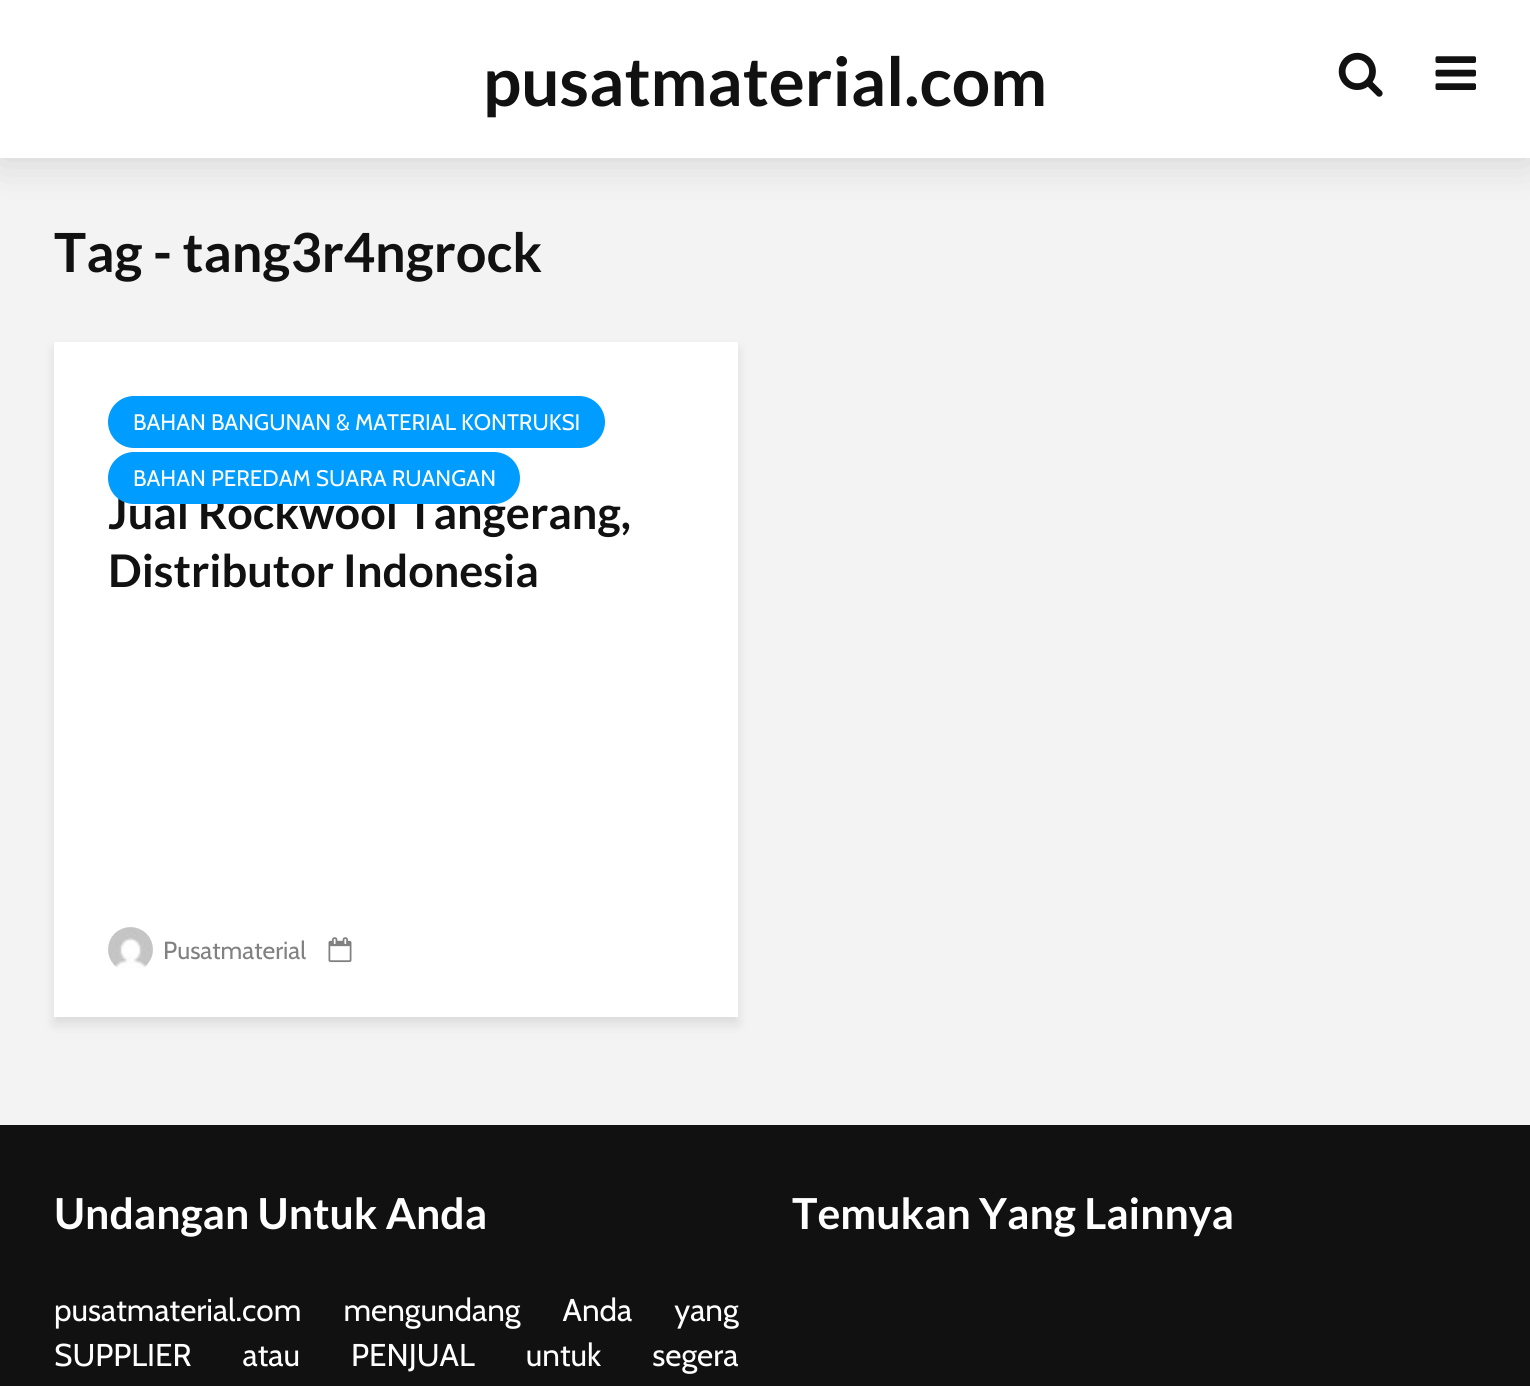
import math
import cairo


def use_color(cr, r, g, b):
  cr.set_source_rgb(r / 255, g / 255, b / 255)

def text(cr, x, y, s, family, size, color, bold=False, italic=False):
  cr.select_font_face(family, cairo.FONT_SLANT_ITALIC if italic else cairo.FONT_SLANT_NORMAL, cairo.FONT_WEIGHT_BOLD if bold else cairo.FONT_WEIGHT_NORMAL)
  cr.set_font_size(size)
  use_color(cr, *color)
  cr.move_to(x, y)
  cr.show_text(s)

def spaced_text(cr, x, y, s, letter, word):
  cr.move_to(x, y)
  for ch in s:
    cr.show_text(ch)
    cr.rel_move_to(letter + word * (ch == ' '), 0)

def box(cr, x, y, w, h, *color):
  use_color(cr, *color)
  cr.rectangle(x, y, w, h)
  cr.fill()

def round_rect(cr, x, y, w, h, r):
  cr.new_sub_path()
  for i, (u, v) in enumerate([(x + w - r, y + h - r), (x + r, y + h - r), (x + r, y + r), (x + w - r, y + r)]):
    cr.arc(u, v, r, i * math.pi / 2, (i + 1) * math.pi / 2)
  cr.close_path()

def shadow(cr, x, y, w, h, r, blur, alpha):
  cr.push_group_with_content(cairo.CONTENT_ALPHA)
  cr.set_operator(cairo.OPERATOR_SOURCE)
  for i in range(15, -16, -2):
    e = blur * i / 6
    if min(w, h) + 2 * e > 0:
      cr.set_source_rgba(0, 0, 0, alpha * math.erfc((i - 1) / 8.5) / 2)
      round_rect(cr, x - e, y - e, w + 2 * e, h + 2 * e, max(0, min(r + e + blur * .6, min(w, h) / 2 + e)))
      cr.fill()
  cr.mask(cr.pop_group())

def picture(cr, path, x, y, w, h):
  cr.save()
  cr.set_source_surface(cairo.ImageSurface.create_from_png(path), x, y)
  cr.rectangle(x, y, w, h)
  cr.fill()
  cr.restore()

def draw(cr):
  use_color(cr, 243, 243, 243)
  cr.paint()
  use_color(cr, 0, 0, 0)
  shadow(cr, 0, 0, 1530, 158, 0, 22.5, 0.15)
  box(cr, 0, 0, 1530, 158, 255, 255, 255)
  picture(cr, "img_01.png", 1338, 52, 45, 45)
  picture(cr, "img_02.png", 1435, 56, 41, 34)
  use_color(cr, 0, 1, 1)
  shadow(cr, 54, 349, 684, 675, 0, 5.5, 0.1)
  box(cr, 54, 342, 684, 675, 255, 255, 255)
  use_color(cr, 0, 156, 255)
  round_rect(cr, 108, 396, 497, 52, 26)
  cr.fill()
  picture(cr, "img_03.png", 108, 927, 45, 41)
  picture(cr, "img_04.png", 328, 937, 24, 26)
  box(cr, 0, 1125, 1530, 261, 17, 17, 17)
  text(cr, 483, 106, "pusatmaterial.com", "Lato", 67.5, (17, 17, 17), bold=True)
  text(cr, 54, 272, "Tag - tang3r4ngrock", "Lato", 54, (17, 17, 17), bold=True)
  text(cr, 133, 430, "BAHAN BANGUNAN & MATERIAL KONTRUKSI", "Cabin", 22.5, (255, 255, 255))
  text(cr, 108, 529, "Jual Rockwool Tangerang,", "Lato", 45, (17, 17, 17), bold=True)
  use_color(cr, 0, 156, 255)
  round_rect(cr, 108, 452, 412, 52, 26)
  cr.fill()
  text(cr, 133, 486, "BAHAN PEREDAM SUARA RUANGAN", "Cabin", 22.5, (255, 255, 255))
  text(cr, 108, 587, "Distributor Indonesia", "Lato", 45, (17, 17, 17), bold=True)
  text(cr, 163, 959, "Pusatmaterial", "Cabin", 24.75, (129, 129, 129))
  text(cr, 54, 1229, "Undangan Untuk Anda", "Lato", 42.75, (255, 255, 255), bold=True)
  cr.select_font_face("Cabin")
  cr.set_font_size(31.5)
  spaced_text(cr, 54, 1321, "pusatmaterial.com mengundang Anda yang", 0, 35)
  spaced_text(cr, 54, 1366, "SUPPLIER atau PENJUAL untuk segera", 0, 44)
  text(cr, 792, 1229, "Temukan Yang Lainnya", "Lato", 42.75, (255, 255, 255), bold=True)


surface = cairo.ImageSurface(cairo.FORMAT_RGB24, 1530, 1386)
cr = cairo.Context(surface)
options = cairo.FontOptions()
options.set_hint_metrics(cairo.HINT_METRICS_OFF)
options.set_hint_style(cairo.HINT_STYLE_NONE)
cr.set_font_options(options)
cr.set_miter_limit(4)
draw(cr)
surface.write_to_png("out.png")
